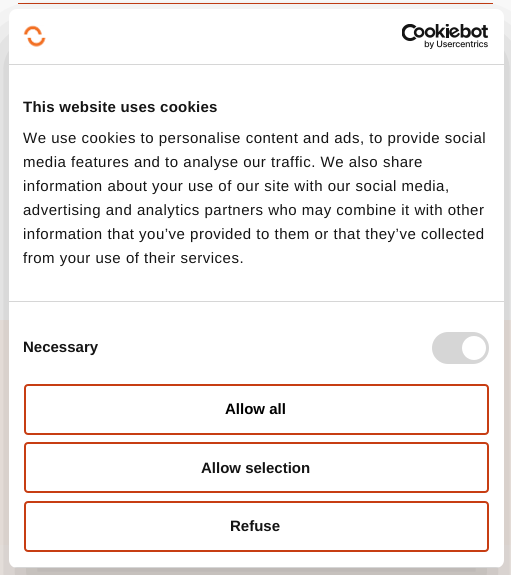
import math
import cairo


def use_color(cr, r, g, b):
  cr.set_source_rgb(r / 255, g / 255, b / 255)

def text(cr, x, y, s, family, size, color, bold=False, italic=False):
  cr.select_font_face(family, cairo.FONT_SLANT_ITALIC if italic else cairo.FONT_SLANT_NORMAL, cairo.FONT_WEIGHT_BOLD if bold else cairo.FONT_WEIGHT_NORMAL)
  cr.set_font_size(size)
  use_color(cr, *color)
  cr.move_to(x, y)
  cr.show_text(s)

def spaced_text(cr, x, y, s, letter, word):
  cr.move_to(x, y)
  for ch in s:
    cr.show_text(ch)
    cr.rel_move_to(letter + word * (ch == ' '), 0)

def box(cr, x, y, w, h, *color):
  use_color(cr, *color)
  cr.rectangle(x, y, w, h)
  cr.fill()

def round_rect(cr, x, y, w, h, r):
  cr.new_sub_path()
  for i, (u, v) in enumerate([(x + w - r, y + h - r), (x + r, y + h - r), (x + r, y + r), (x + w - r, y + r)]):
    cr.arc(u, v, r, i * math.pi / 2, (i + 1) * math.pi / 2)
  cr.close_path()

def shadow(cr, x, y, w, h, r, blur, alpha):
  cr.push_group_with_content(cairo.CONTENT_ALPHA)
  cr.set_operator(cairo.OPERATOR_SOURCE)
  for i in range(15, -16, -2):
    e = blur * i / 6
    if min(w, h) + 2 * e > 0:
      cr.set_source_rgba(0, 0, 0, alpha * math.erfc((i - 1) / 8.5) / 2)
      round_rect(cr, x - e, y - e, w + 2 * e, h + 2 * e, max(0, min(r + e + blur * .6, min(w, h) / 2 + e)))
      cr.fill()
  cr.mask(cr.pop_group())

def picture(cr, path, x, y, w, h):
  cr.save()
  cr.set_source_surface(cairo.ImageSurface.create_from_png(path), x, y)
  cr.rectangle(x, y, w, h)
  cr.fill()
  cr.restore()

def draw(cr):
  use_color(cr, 255, 255, 255)
  cr.paint()
  box(cr, 18, 3, 475, 1, 199, 61, 19)
  box(cr, 0, 320, 511, 225, 255, 246, 240)
  box(cr, 0, 545, 511, 30, 255, 248, 244)
  use_color(cr, 0, 0, 0)
  shadow(cr, 9, 41, 495, 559, 8, 34, 0.3)
  use_color(cr, 255, 255, 255)
  round_rect(cr, 9, 9, 495, 559, 8)
  cr.fill()
  box(cr, 9, 64, 495, 1, 214, 214, 214)
  picture(cr, "img_01.png", 23, 25, 23, 22)
  picture(cr, "img_02.png", 402, 24, 87, 25)
  box(cr, 9, 301, 495, 1, 214, 214, 214)
  round_rect(cr, 432, 332, 57, 32, 16)
  cr.fill()
  use_color(cr, 255, 255, 255)
  cr.arc(474, 348, 12, 0, 2 * math.pi)
  cr.fill()
  cr.save()
  round_rect(cr, 9, 9, 495, 559, 8)
  cr.clip()
  box(cr, 9, 567, 495, 1, 214, 214, 214)
  cr.restore()
  round_rect(cr, 25, 385, 463, 49, 3)
  use_color(cr, 199, 61, 19)
  cr.stroke()
  round_rect(cr, 25, 443, 463, 49, 3)
  cr.stroke()
  round_rect(cr, 25, 502, 463, 49, 3)
  cr.stroke()
  cr.select_font_face("Liberation Sans", cairo.FONT_SLANT_NORMAL, cairo.FONT_WEIGHT_BOLD)
  cr.set_font_size(15)
  use_color(cr, 20, 20, 20)
  spaced_text(cr, 23, 112, "This website uses cookies", 0.25, 0)
  cr.select_font_face("Liberation Sans")
  spaced_text(cr, 23, 143, "We use cookies to personalise content and ads, to provide social", 0.5, 0)
  spaced_text(cr, 23, 167, "media features and to analyse our traffic. We also share", 0.5, 0)
  spaced_text(cr, 23, 191, "information about your use of our site with our social media,", 0.5, 0)
  spaced_text(cr, 23, 215, "advertising and analytics partners who may combine it with other", 0.5, 0)
  spaced_text(cr, 23, 239, "information that you’ve provided to them or that they’ve collected", 0.5, 0)
  spaced_text(cr, 23, 263, "from your use of their services.", 0.5, 0)
  text(cr, 23, 352, "Necessary", "Liberation Sans", 15, (20, 20, 20), bold=True)
  text(cr, 225, 414, "Allow all", "Liberation Sans", 15, (0, 0, 0), bold=True)
  text(cr, 201, 473, "Allow selection", "Liberation Sans", 15, (20, 20, 20), bold=True)
  text(cr, 230, 531, "Refuse", "Liberation Sans", 15, (20, 20, 20), bold=True)


surface = cairo.ImageSurface(cairo.FORMAT_RGB24, 511, 575)
cr = cairo.Context(surface)
options = cairo.FontOptions()
options.set_hint_metrics(cairo.HINT_METRICS_OFF)
options.set_hint_style(cairo.HINT_STYLE_NONE)
cr.set_font_options(options)
cr.set_miter_limit(4)
draw(cr)
surface.write_to_png("out.png")
